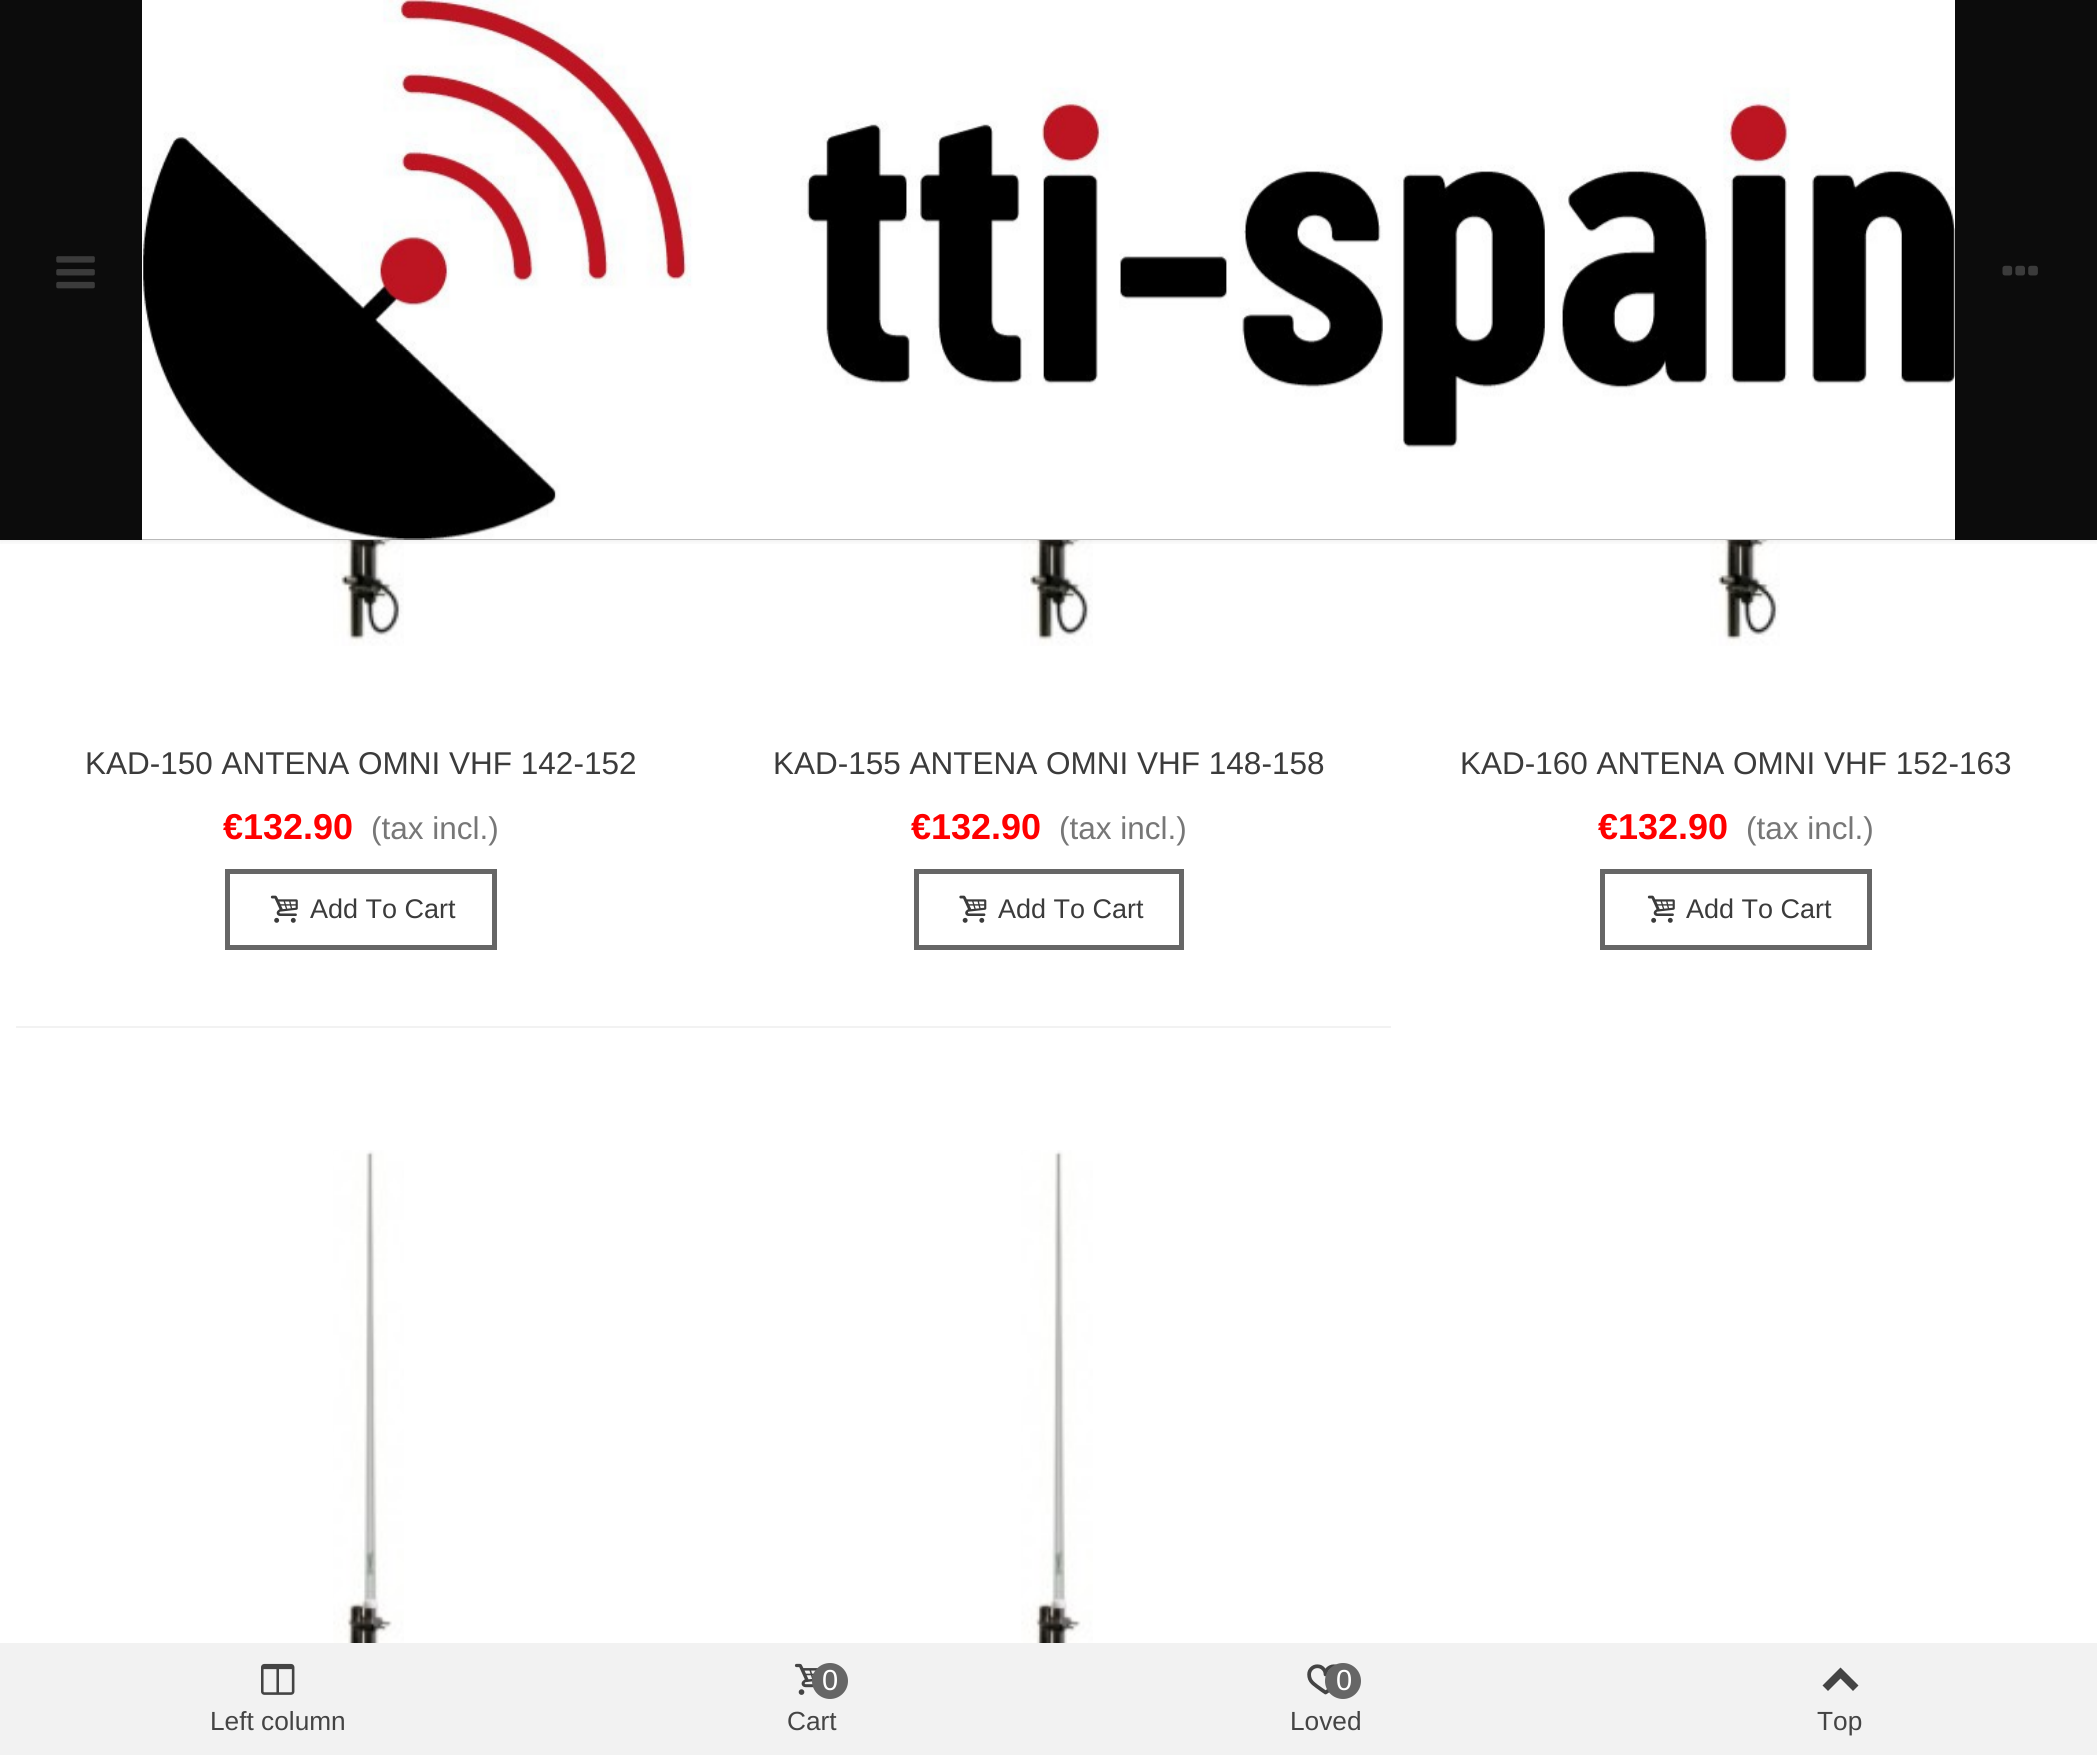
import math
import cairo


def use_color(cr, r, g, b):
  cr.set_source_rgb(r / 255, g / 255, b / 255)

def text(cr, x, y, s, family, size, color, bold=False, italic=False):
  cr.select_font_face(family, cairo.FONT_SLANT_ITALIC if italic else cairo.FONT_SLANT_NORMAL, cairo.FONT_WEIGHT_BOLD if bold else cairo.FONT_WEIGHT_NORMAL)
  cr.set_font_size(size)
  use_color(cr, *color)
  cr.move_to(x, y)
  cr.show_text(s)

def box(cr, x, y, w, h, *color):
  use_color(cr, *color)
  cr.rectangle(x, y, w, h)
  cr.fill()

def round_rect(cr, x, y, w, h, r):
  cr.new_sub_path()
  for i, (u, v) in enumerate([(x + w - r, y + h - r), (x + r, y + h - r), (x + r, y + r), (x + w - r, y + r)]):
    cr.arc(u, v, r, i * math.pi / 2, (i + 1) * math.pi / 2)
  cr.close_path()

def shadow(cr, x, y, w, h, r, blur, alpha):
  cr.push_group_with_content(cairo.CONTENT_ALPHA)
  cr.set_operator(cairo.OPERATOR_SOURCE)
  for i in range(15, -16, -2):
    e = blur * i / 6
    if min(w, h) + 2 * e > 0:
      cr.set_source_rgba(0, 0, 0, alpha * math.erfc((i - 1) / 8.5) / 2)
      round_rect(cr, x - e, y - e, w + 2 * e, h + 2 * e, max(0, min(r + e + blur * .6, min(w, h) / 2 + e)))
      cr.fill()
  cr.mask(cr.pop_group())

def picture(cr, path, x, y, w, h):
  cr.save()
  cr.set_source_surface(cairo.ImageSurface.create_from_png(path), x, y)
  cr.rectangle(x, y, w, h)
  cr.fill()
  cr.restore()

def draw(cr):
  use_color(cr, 255, 255, 255)
  cr.paint()
  picture(cr, "img_04.png", 333, 539, 71, 107)
  picture(cr, "img_06.png", 1021, 539, 72, 107)
  picture(cr, "img_08.png", 1710, 539, 70, 107)
  cr.save()
  cr.rectangle(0, 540, 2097, 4)
  cr.clip()
  use_color(cr, 0, 0, 0)
  shadow(cr, 0, 0, 2097, 540, 0, 4.5, 0.1)
  cr.restore()
  cr.set_source_rgba(0, 0, 0, 0.95)
  cr.rectangle(0, 0, 2097, 540)
  cr.fill()
  picture(cr, "img_01.png", 56, 256, 39, 33)
  picture(cr, "img_02.png", 142, 0, 1813, 540)
  picture(cr, "img_03.png", 2002, 265, 36, 11)
  cr.rectangle(227.5, 871.5, 267, 76)
  use_color(cr, 102, 102, 102)
  cr.set_line_width(5)
  cr.stroke()
  picture(cr, "img_05.png", 270, 895, 28, 28)
  cr.rectangle(916.5, 871.5, 265, 76)
  cr.stroke()
  picture(cr, "img_07.png", 959, 895, 28, 28)
  cr.rectangle(1602.5, 871.5, 267, 76)
  cr.stroke()
  picture(cr, "img_05.png", 1647, 895, 28, 28)
  box(cr, 16, 1026, 1375, 2, 242, 242, 242)
  picture(cr, "img_09.png", 333, 1150, 71, 493)
  picture(cr, "img_10.png", 1021, 1150, 72, 493)
  box(cr, 0, 1643, 2097, 112, 242, 242, 242)
  picture(cr, "img_11.png", 261, 1663, 34, 32)
  picture(cr, "img_12.png", 794, 1663, 25, 32)
  use_color(cr, 102, 102, 102)
  cr.arc(830, 1681, 18, 0, 2 * math.pi)
  cr.fill()
  picture(cr, "img_13.png", 1307, 1664, 30, 31)
  cr.arc(1343, 1681, 18, 0, 2 * math.pi)
  cr.fill()
  use_color(cr, 68, 68, 68)
  cr.new_path()
  cr.move_to(1822.5, 1685.5)
  cr.line_to(1840.5, 1667.5)
  cr.line_to(1858.5, 1685.5)
  cr.line_to(1853, 1691)
  cr.line_to(1840.5, 1678.5)
  cr.line_to(1828, 1691)
  cr.close_path()
  cr.fill()
  text(cr, 85, 774, "KAD-150 ANTENA OMNI VHF 142-152", "Liberation Sans", 31.5, (59, 59, 59))
  text(cr, 223, 839, "€132.90", "Liberation Sans", 36, (255, 0, 0), bold=True)
  text(cr, 371, 839, "(tax incl.)", "Liberation Sans", 31.5, (119, 119, 119))
  text(cr, 310, 918, "Add To Cart", "Liberation Sans", 27, (59, 59, 59))
  text(cr, 773, 774, "KAD-155 ANTENA OMNI VHF 148-158", "Liberation Sans", 31.5, (59, 59, 59))
  text(cr, 911, 839, "€132.90", "Liberation Sans", 36, (255, 0, 0), bold=True)
  text(cr, 1059, 839, "(tax incl.)", "Liberation Sans", 31.5, (119, 119, 119))
  text(cr, 998, 918, "Add To Cart", "Liberation Sans", 27, (59, 59, 59))
  text(cr, 1460, 774, "KAD-160 ANTENA OMNI VHF 152-163", "Liberation Sans", 31.5, (59, 59, 59))
  text(cr, 1598, 839, "€132.90", "Liberation Sans", 36, (255, 0, 0), bold=True)
  text(cr, 1746, 839, "(tax incl.)", "Liberation Sans", 31.5, (119, 119, 119))
  text(cr, 1686, 918, "Add To Cart", "Liberation Sans", 27, (59, 59, 59))
  text(cr, 210, 1730, "Left column", "Liberation Sans", 26.25, (68, 68, 68))
  text(cr, 822, 1690, "0", "Liberation Sans", 29, (255, 255, 255))
  text(cr, 787, 1730, "Cart", "Liberation Sans", 26.25, (68, 68, 68))
  text(cr, 1336, 1690, "0", "Liberation Sans", 29, (255, 255, 255))
  text(cr, 1290, 1730, "Loved", "Liberation Sans", 26.25, (68, 68, 68))
  text(cr, 1817, 1730, "Top", "Liberation Sans", 26.25, (68, 68, 68))


surface = cairo.ImageSurface(cairo.FORMAT_RGB24, 2097, 1755)
cr = cairo.Context(surface)
options = cairo.FontOptions()
options.set_hint_metrics(cairo.HINT_METRICS_OFF)
options.set_hint_style(cairo.HINT_STYLE_NONE)
cr.set_font_options(options)
cr.set_miter_limit(4)
draw(cr)
surface.write_to_png("out.png")
